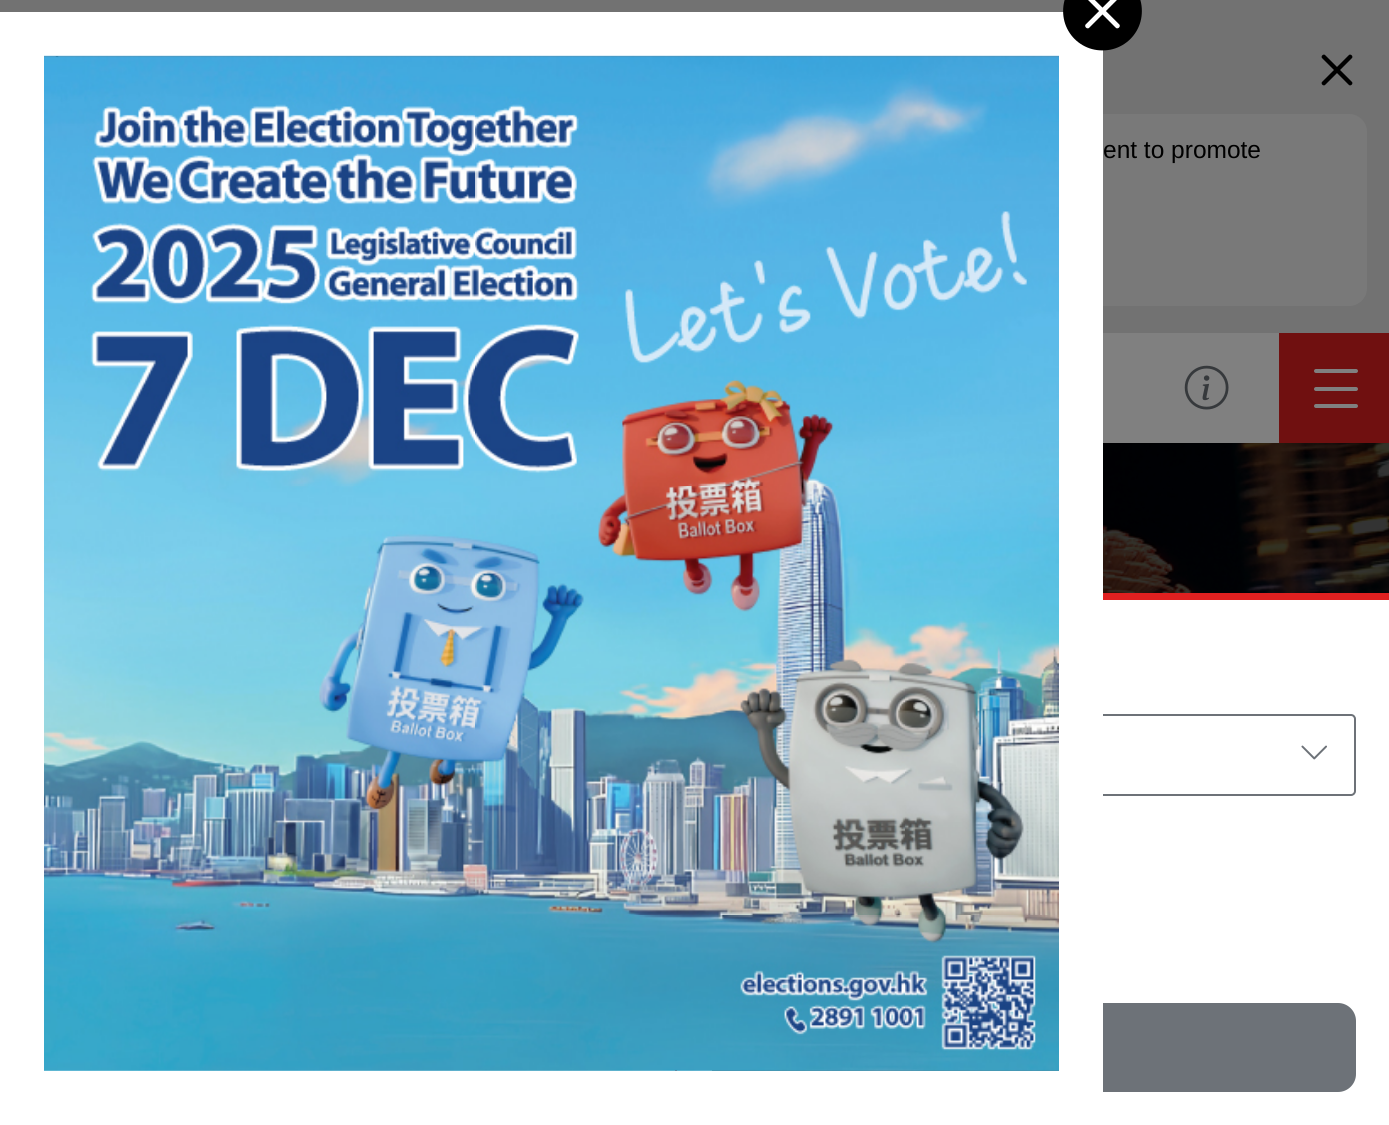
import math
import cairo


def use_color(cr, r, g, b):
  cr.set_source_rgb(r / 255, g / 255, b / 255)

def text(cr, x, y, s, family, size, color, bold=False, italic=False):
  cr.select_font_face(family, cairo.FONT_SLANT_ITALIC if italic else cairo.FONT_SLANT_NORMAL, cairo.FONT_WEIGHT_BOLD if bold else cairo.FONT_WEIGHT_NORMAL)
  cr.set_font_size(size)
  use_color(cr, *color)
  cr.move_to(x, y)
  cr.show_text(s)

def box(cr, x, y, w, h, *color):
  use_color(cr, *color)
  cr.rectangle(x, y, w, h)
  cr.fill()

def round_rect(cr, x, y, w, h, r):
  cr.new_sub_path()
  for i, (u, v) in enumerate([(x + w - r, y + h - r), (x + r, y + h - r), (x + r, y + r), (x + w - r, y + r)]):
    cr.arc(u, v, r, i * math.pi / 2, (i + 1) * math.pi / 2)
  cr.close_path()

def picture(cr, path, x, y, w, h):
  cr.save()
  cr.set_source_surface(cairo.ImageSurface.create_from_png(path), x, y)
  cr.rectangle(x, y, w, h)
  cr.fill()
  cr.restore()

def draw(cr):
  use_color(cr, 255, 255, 255)
  cr.paint()
  box(cr, 0, 0, 1389, 333, 114, 114, 114)
  picture(cr, "img_03.png", 55, 56, 4, 2)
  use_color(cr, 121, 121, 121)
  round_rect(cr, 25, 114, 1342, 192, 18)
  cr.fill()
  round_rect(cr, 34, 715, 1321, 80, 4)
  use_color(cr, 109, 114, 120)
  cr.stroke()
  cr.rectangle(34, 1004, 642, 87)
  use_color(cr, 224, 32, 32)
  cr.stroke()
  use_color(cr, 109, 114, 120)
  round_rect(cr, 713, 1004, 642, 87, 17)
  cr.fill_preserve()
  cr.stroke()
  cr.rectangle(22, 34, 1059, 1059)
  use_color(cr, 255, 255, 255)
  cr.set_line_width(44)
  cr.stroke()
  box(cr, 1085, 0, 35, 29, 255, 255, 255)
  picture(cr, "img_01.png", 1063, 0, 79, 51)
  picture(cr, "img_02.png", 44, 55, 1015, 1016)
  box(cr, 1103, 333, 176, 110, 128, 128, 128)
  picture(cr, "img_04.png", 1321, 54, 32, 32)
  picture(cr, "img_05.png", 1184, 365, 45, 45)
  box(cr, 1279, 333, 110, 110, 112, 16, 16)
  use_color(cr, 128, 128, 128)
  round_rect(cr, 1314, 369, 44, 4, 2)
  cr.fill()
  round_rect(cr, 1314, 387, 44, 4, 2)
  cr.fill()
  round_rect(cr, 1314, 404, 44, 4, 2)
  cr.fill()
  picture(cr, "img_06.png", 1103, 443, 286, 150)
  box(cr, 1103, 593, 286, 7, 224, 32, 32)
  picture(cr, "img_07.png", 1301, 745, 26, 15)
  text(cr, 1103, 158, "ent to promote", "Liberation Sans", 24.5, (0, 0, 0))


surface = cairo.ImageSurface(cairo.FORMAT_RGB24, 1389, 1125)
cr = cairo.Context(surface)
options = cairo.FontOptions()
options.set_hint_metrics(cairo.HINT_METRICS_OFF)
options.set_hint_style(cairo.HINT_STYLE_NONE)
cr.set_font_options(options)
cr.set_miter_limit(4)
draw(cr)
surface.write_to_png("out.png")
